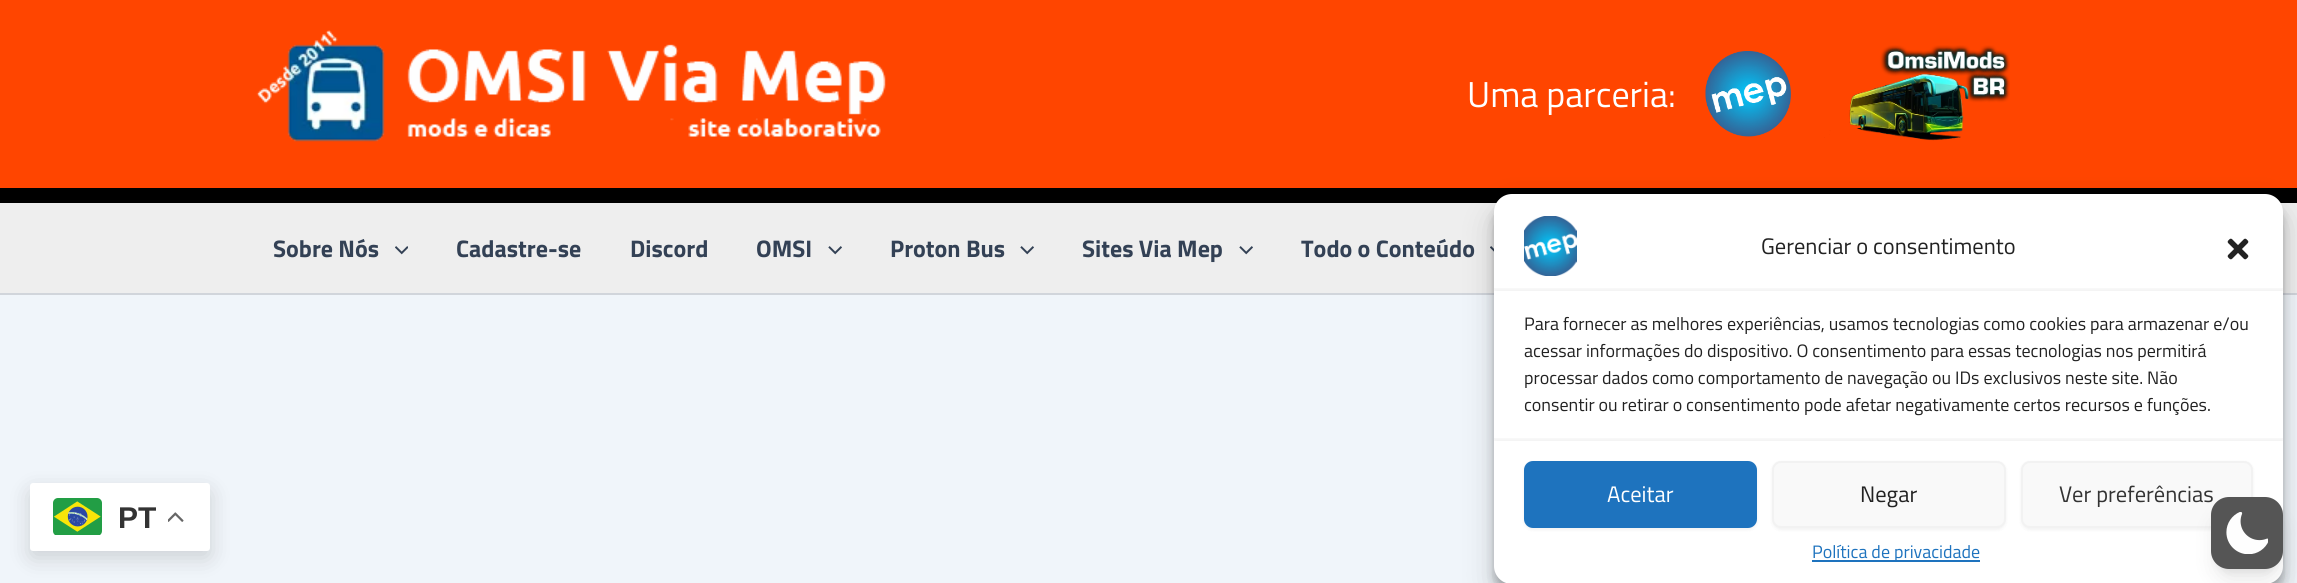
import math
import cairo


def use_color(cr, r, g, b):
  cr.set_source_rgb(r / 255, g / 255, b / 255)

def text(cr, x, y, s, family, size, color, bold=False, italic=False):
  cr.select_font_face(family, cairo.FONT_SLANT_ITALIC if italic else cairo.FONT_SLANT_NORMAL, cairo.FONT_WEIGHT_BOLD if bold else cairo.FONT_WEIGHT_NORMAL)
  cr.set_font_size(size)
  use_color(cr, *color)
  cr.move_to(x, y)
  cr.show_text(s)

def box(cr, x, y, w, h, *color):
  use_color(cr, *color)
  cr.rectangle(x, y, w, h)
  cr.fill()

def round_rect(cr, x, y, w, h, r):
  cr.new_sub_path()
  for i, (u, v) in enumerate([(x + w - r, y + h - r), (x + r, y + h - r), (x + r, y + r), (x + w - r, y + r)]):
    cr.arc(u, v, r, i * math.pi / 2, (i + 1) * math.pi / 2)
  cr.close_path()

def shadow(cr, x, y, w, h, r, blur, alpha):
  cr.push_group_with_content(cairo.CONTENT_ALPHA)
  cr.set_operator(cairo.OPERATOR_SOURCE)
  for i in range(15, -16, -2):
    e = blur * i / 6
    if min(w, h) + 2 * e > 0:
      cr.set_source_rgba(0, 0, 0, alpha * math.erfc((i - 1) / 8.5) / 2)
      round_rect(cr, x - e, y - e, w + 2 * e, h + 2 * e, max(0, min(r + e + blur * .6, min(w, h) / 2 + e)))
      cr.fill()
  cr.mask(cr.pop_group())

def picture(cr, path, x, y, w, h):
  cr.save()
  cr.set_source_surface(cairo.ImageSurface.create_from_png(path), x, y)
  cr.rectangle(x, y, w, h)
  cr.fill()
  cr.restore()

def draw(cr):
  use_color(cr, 240, 245, 250)
  cr.paint()
  box(cr, 0, 0, 2297, 188, 255, 69, 0)
  box(cr, 0, 188, 2297, 15, 0, 0, 0)
  picture(cr, "img_01.png", 256, 30, 630, 112)
  picture(cr, "img_02.png", 1705, 51, 86, 86)
  picture(cr, "img_03.png", 1824, 45, 186, 96)
  box(cr, 0, 203, 2297, 90, 238, 238, 238)
  box(cr, 0, 293, 2297, 2, 209, 213, 219)
  picture(cr, "img_04.png", 395, 246, 13, 9)
  picture(cr, "img_05.png", 828, 246, 14, 9)
  picture(cr, "img_05.png", 1020, 246, 14, 9)
  picture(cr, "img_05.png", 1239, 246, 14, 9)
  picture(cr, "img_06.png", 1490, 246, 4, 6)
  use_color(cr, 0, 0, 0)
  shadow(cr, 1494, 203, 789, 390, 18, 4.5, 0.23)
  shadow(cr, 1494, 209, 789, 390, 18, 15, 0.19)
  use_color(cr, 255, 255, 255)
  round_rect(cr, 1494, 194, 789, 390, 18)
  cr.fill()
  picture(cr, "img_07.png", 1524, 216, 53, 60)
  picture(cr, "img_08.png", 2227, 238, 22, 22)
  cr.save()
  cr.rectangle(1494, 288, 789, 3)
  cr.clip()
  use_color(cr, 0, 0, 0)
  shadow(cr, 1494, 288, 789, 5, 0, 2, 0.05)
  cr.restore()
  cr.save()
  cr.rectangle(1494, 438, 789, 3)
  cr.clip()
  use_color(cr, 0, 0, 0)
  shadow(cr, 1494, 438, 789, 5, 0, 2, 0.05)
  cr.restore()
  use_color(cr, 0, 0, 0)
  shadow(cr, 1524, 462, 233, 68, 9, 1.5, 0.05)
  use_color(cr, 30, 115, 190)
  round_rect(cr, 1525, 462, 231, 65, 8)
  cr.fill_preserve()
  cr.stroke()
  use_color(cr, 0, 0, 0)
  shadow(cr, 1772, 462, 234, 68, 9, 1.5, 0.05)
  use_color(cr, 249, 249, 249)
  round_rect(cr, 1773, 462, 232, 65, 8)
  cr.fill_preserve()
  use_color(cr, 242, 242, 242)
  cr.stroke()
  use_color(cr, 0, 0, 0)
  shadow(cr, 2021, 462, 232, 68, 9, 1.5, 0.05)
  use_color(cr, 249, 249, 249)
  round_rect(cr, 2022, 462, 230, 65, 8)
  cr.fill_preserve()
  use_color(cr, 242, 242, 242)
  cr.stroke()
  box(cr, 1812, 560, 168, 2, 30, 115, 190)
  use_color(cr, 0, 0, 0)
  shadow(cr, 30, 491, 180, 67, 3, 11, 0.15)
  use_color(cr, 255, 255, 255)
  round_rect(cr, 30, 483, 180, 68, 3)
  cr.fill()
  picture(cr, "img_09.png", 53, 498, 49, 37)
  picture(cr, "img_10.png", 168, 512, 16, 10)
  use_color(cr, 0, 0, 0)
  shadow(cr, 2217, 509, 60, 60, 12, 4.5, 0.1)
  shadow(cr, 2216, 516, 63, 63, 14, 11, 0.1)
  text(cr, 1467, 107, "Uma parceria:", "Titillium Web", 36, (255, 255, 255))
  text(cr, 273, 257, "Sobre Nós", "Titillium Web", 24, (51, 65, 85), bold=True)
  text(cr, 456, 257, "Cadastre-se", "Titillium Web", 24, (51, 65, 85), bold=True)
  text(cr, 630, 257, "Discord", "Titillium Web", 24, (51, 65, 85), bold=True)
  text(cr, 756, 257, "OMSI", "Titillium Web", 24, (51, 65, 85), bold=True)
  text(cr, 890, 257, "Proton Bus", "Titillium Web", 24, (51, 65, 85), bold=True)
  text(cr, 1082, 257, "Sites Via Mep", "Titillium Web", 24, (51, 65, 85), bold=True)
  text(cr, 1301, 257, "Todo o Conteúdo", "Titillium Web", 24, (51, 65, 85), bold=True)
  text(cr, 1761, 254, "Gerenciar o consentimento", "Titillium Web", 22.5, (34, 34, 34))
  text(cr, 1524, 330, "Para fornecer as melhores experiências, usamos tecnologias como cookies para armazenar e/ou", "Titillium Web", 18, (34, 34, 34))
  text(cr, 1524, 357, "acessar informações do dispositivo. O consentimento para essas tecnologias nos permitirá", "Titillium Web", 18, (34, 34, 34))
  text(cr, 1524, 384, "processar dados como comportamento de navegação ou IDs exclusivos neste site. Não", "Titillium Web", 18, (34, 34, 34))
  text(cr, 1524, 411, "consentir ou retirar o consentimento pode afetar negativamente certos recursos e funções.", "Titillium Web", 18, (34, 34, 34))
  text(cr, 1607, 502, "Aceitar", "Titillium Web", 22.5, (255, 255, 255))
  text(cr, 1860, 502, "Negar", "Titillium Web", 22.5, (34, 34, 34))
  text(cr, 2059, 502, "Ver preferências", "Titillium Web", 22.5, (51, 51, 51))
  text(cr, 1812, 558, "Política de privacidade", "Titillium Web", 18, (30, 115, 190))
  text(cr, 118, 528, "PT", "Liberation Sans", 30, (51, 51, 51), bold=True)
  use_color(cr, 85, 85, 85)
  round_rect(cr, 2211, 497, 72, 72, 18)
  cr.fill()
  picture(cr, "img_11.png", 2226, 512, 42, 42)


surface = cairo.ImageSurface(cairo.FORMAT_RGB24, 2297, 583)
cr = cairo.Context(surface)
options = cairo.FontOptions()
options.set_hint_metrics(cairo.HINT_METRICS_OFF)
options.set_hint_style(cairo.HINT_STYLE_NONE)
cr.set_font_options(options)
cr.set_miter_limit(4)
draw(cr)
surface.write_to_png("out.png")
